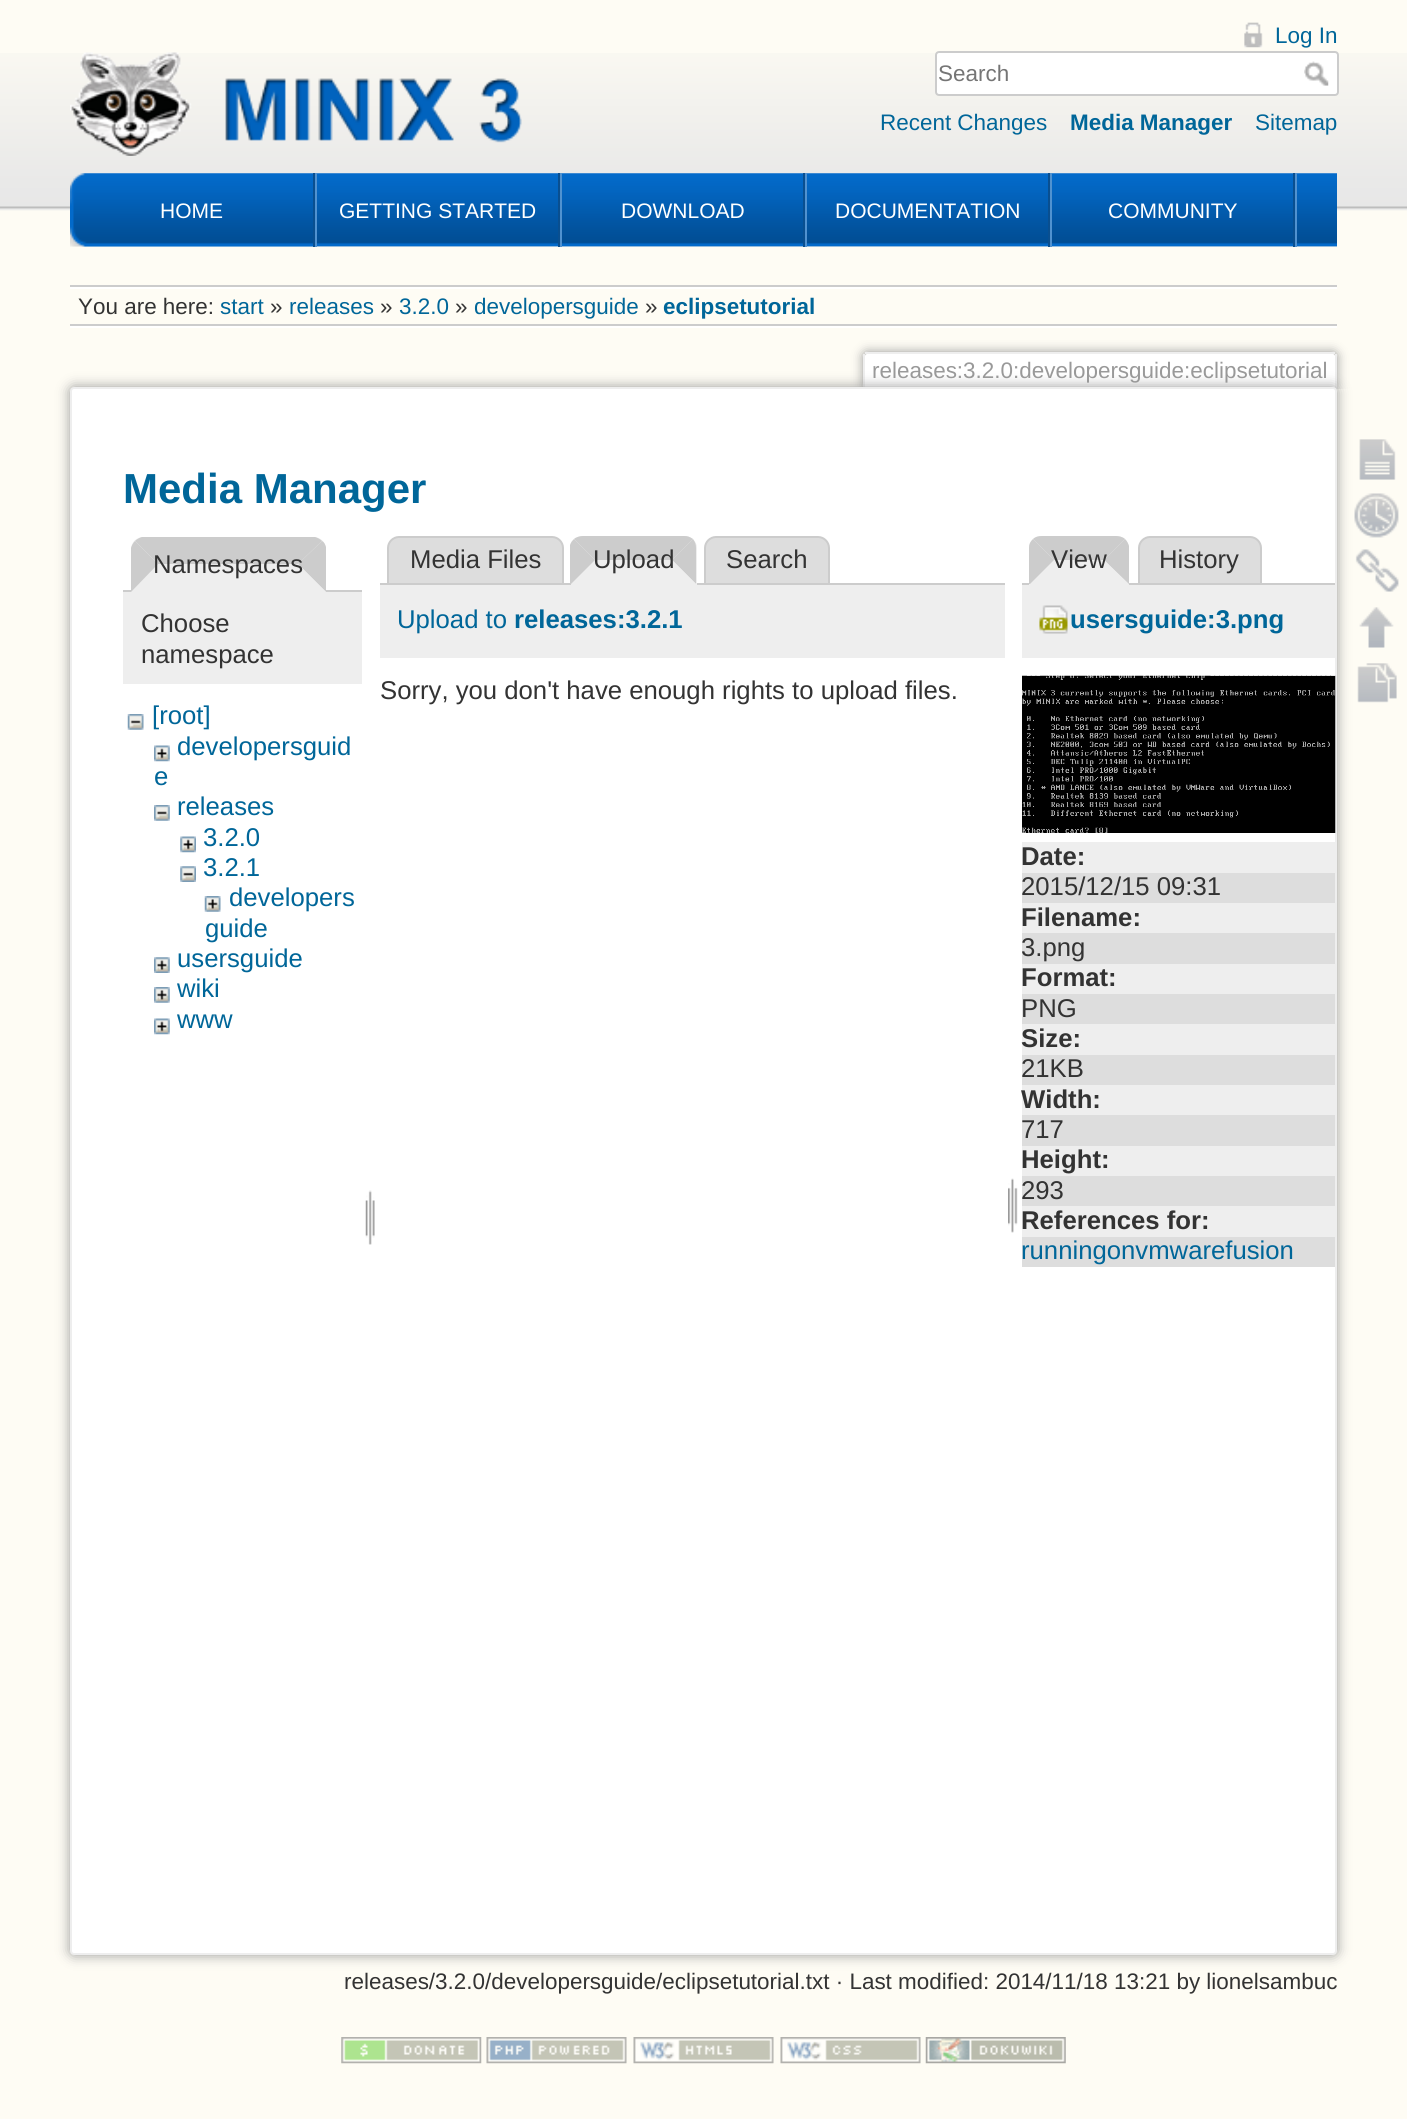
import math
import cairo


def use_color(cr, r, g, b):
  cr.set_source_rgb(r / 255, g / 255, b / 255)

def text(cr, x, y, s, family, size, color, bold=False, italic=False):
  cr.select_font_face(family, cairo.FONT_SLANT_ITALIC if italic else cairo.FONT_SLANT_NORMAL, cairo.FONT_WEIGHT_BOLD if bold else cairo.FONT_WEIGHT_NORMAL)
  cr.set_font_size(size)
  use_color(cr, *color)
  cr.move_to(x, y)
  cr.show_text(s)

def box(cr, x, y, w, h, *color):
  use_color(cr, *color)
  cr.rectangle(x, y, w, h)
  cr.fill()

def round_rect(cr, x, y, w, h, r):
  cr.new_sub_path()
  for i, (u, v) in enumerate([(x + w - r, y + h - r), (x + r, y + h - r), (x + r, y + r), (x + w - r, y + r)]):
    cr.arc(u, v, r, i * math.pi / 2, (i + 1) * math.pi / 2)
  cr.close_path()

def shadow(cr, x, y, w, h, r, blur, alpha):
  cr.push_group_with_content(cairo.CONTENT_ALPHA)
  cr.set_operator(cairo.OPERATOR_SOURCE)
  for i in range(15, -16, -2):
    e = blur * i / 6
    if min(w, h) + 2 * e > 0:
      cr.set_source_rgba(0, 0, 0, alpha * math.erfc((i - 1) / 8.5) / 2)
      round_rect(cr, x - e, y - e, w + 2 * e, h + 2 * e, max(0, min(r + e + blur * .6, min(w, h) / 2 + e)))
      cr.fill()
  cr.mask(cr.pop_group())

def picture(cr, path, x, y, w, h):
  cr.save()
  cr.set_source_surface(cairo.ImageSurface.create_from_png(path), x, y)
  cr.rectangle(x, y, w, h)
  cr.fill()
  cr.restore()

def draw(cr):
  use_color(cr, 254, 252, 244)
  cr.paint()
  picture(cr, "img_01.png", 0, 53, 1407, 158)
  picture(cr, "img_02.png", 1244, 22, 19, 26)
  use_color(cr, 255, 255, 255)
  round_rect(cr, 936, 52, 402, 43, 3)
  cr.fill_preserve()
  use_color(cr, 204, 204, 204)
  cr.stroke()
  picture(cr, "img_03.png", 1304, 61, 25, 25)
  picture(cr, "img_04.png", 70, 52, 452, 104)
  picture(cr, "img_05.png", 70, 173, 243, 74)
  box(cr, 313, 173, 2, 74, 9, 79, 144)
  picture(cr, "img_06.png", 317, 173, 241, 74)
  box(cr, 558, 173, 2, 74, 9, 79, 144)
  box(cr, 315, 173, 2, 74, 80, 146, 208)
  picture(cr, "img_06.png", 562, 173, 241, 74)
  box(cr, 803, 173, 2, 74, 9, 79, 144)
  box(cr, 560, 173, 2, 74, 80, 146, 208)
  picture(cr, "img_06.png", 807, 173, 241, 74)
  box(cr, 1048, 173, 2, 74, 9, 79, 144)
  box(cr, 805, 173, 2, 74, 80, 146, 208)
  picture(cr, "img_06.png", 1052, 173, 241, 74)
  box(cr, 1293, 173, 2, 74, 9, 79, 144)
  box(cr, 1050, 173, 2, 74, 80, 146, 208)
  picture(cr, "img_07.png", 1297, 173, 40, 74)
  box(cr, 1295, 173, 2, 74, 80, 146, 208)
  box(cr, 70, 285, 1267, 2, 204, 204, 204)
  box(cr, 70, 326, 1267, 2, 255, 255, 255)
  box(cr, 70, 287, 1267, 2, 255, 255, 255)
  box(cr, 70, 324, 1267, 2, 204, 204, 204)
  cr.save()
  cr.rectangle(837, 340, 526, 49)
  cr.clip()
  use_color(cr, 153, 153, 153)
  shadow(cr, 863, 352, 474, 37, 4, 5.5, 1)
  cr.restore()
  use_color(cr, 255, 255, 255)
  cr.new_path()
  cr.move_to(867, 354)
  cr.line_to(1333, 354)
  cr.curve_to(1334, 354, 1335, 355, 1335, 356)
  cr.line_to(1335, 389)
  cr.line_to(865, 389)
  cr.line_to(865, 356)
  cr.curve_to(865, 355, 866, 354, 867, 354)
  cr.close_path()
  cr.fill()
  box(cr, 865, 352, 470, 2, 238, 238, 238)
  box(cr, 1335, 354, 2, 35, 238, 238, 238)
  box(cr, 863, 354, 2, 35, 238, 238, 238)
  use_color(cr, 153, 153, 153)
  shadow(cr, 70, 387, 1267, 1568, 4, 6.5, 1)
  use_color(cr, 255, 255, 255)
  round_rect(cr, 71, 388, 1265, 1566, 3)
  cr.fill_preserve()
  use_color(cr, 238, 238, 238)
  cr.stroke()
  box(cr, 123, 590, 239, 2, 204, 204, 204)
  use_color(cr, 238, 238, 238)
  cr.new_path()
  cr.move_to(143, 537)
  cr.line_to(314, 537)
  cr.curve_to(320.5, 537, 326, 542.5, 326, 549)
  cr.line_to(326, 592)
  cr.line_to(131, 592)
  cr.line_to(131, 549)
  cr.curve_to(131, 542.5, 136.5, 537, 143, 537)
  cr.close_path()
  cr.fill()
  use_color(cr, 204, 204, 204)
  cr.new_path()
  cr.move_to(315, 537)
  cr.line_to(142, 537)
  cr.curve_to(139, 538, 137, 539, 135, 541)
  cr.line_to(158, 564)
  cr.line_to(298, 564)
  cr.line_to(322, 541)
  cr.curve_to(320, 539, 318, 538, 315, 537)
  cr.close_path()
  cr.fill()
  cr.new_path()
  cr.move_to(322, 541)
  cr.line_to(298, 564)
  cr.line_to(326, 592)
  cr.line_to(326, 547)
  cr.curve_to(325, 544, 324, 542, 322, 541)
  cr.close_path()
  cr.fill()
  use_color(cr, 238, 238, 238)
  cr.new_path()
  cr.move_to(326, 592)
  cr.line_to(298, 564)
  cr.line_to(158, 564)
  cr.line_to(131, 592)
  cr.close_path()
  cr.fill()
  use_color(cr, 204, 204, 204)
  cr.new_path()
  cr.move_to(131, 592)
  cr.line_to(158, 564)
  cr.line_to(135, 541)
  cr.curve_to(133, 543, 132, 545, 131, 548)
  cr.close_path()
  cr.fill()
  box(cr, 123, 592, 239, 92, 238, 238, 238)
  picture(cr, "img_08.png", 127, 714, 17, 16)
  picture(cr, "img_09.png", 154, 745, 16, 17)
  picture(cr, "img_10.png", 154, 805, 16, 16)
  picture(cr, "img_11.png", 180, 836, 16, 17)
  picture(cr, "img_12.png", 180, 866, 16, 16)
  picture(cr, "img_13.png", 204, 896, 17, 16)
  picture(cr, "img_14.png", 154, 957, 16, 16)
  picture(cr, "img_15.png", 154, 987, 16, 16)
  picture(cr, "img_09.png", 154, 1018, 16, 17)
  picture(cr, "img_16.png", 365, 1190, 10, 55)
  use_color(cr, 221, 221, 221)
  cr.new_path()
  cr.move_to(399, 537)
  cr.line_to(552, 537)
  cr.curve_to(558, 537, 563, 542, 563, 548)
  cr.line_to(563, 584)
  cr.line_to(388, 584)
  cr.line_to(388, 548)
  cr.curve_to(388, 542, 393, 537, 399, 537)
  cr.close_path()
  cr.fill_preserve()
  use_color(cr, 204, 204, 204)
  cr.stroke()
  use_color(cr, 221, 221, 221)
  cr.new_path()
  cr.move_to(716, 537)
  cr.line_to(818, 537)
  cr.curve_to(824, 537, 829, 542, 829, 548)
  cr.line_to(829, 584)
  cr.line_to(705, 584)
  cr.line_to(705, 548)
  cr.curve_to(705, 542, 710, 537, 716, 537)
  cr.close_path()
  cr.fill_preserve()
  use_color(cr, 204, 204, 204)
  cr.stroke()
  box(cr, 380, 583, 625, 2, 204, 204, 204)
  use_color(cr, 238, 238, 238)
  cr.new_path()
  cr.move_to(583, 536)
  cr.line_to(685, 536)
  cr.curve_to(691.5, 536, 697, 541.5, 697, 548)
  cr.line_to(697, 585)
  cr.line_to(571, 585)
  cr.line_to(571, 548)
  cr.curve_to(571, 541.5, 576.5, 536, 583, 536)
  cr.close_path()
  cr.fill()
  use_color(cr, 204, 204, 204)
  cr.new_path()
  cr.move_to(583, 536)
  cr.curve_to(580, 536, 576, 537, 574, 539)
  cr.line_to(595, 560)
  cr.line_to(672, 560)
  cr.line_to(693, 539)
  cr.curve_to(690, 537, 688, 536, 684, 536)
  cr.close_path()
  cr.fill()
  cr.new_path()
  cr.move_to(696, 584)
  cr.line_to(696, 548)
  cr.curve_to(696, 544, 695, 542, 693, 539)
  cr.line_to(672, 560)
  cr.close_path()
  cr.fill()
  use_color(cr, 238, 238, 238)
  cr.new_path()
  cr.move_to(696, 584)
  cr.line_to(672, 560)
  cr.line_to(595, 560)
  cr.line_to(571, 584)
  cr.close_path()
  cr.fill()
  use_color(cr, 204, 204, 204)
  cr.new_path()
  cr.move_to(570, 545)
  cr.curve_to(571, 542, 572, 541, 574, 539)
  cr.line_to(595, 560)
  cr.line_to(571, 584)
  cr.line_to(570, 584)
  cr.close_path()
  cr.fill()
  box(cr, 380, 585, 625, 73, 238, 238, 238)
  picture(cr, "img_17.png", 1008, 1178, 10, 55)
  use_color(cr, 221, 221, 221)
  cr.new_path()
  cr.move_to(1150, 537)
  cr.line_to(1250, 537)
  cr.curve_to(1256, 537, 1261, 542, 1261, 548)
  cr.line_to(1261, 584)
  cr.line_to(1139, 584)
  cr.line_to(1139, 548)
  cr.curve_to(1139, 542, 1144, 537, 1150, 537)
  cr.close_path()
  cr.fill_preserve()
  use_color(cr, 204, 204, 204)
  cr.stroke()
  box(cr, 1022, 583, 313, 2, 204, 204, 204)
  use_color(cr, 238, 238, 238)
  cr.new_path()
  cr.move_to(1041, 536)
  cr.line_to(1117, 536)
  cr.curve_to(1123.5, 536, 1129, 541.5, 1129, 548)
  cr.line_to(1129, 585)
  cr.line_to(1029, 585)
  cr.line_to(1029, 548)
  cr.curve_to(1029, 541.5, 1034.5, 536, 1041, 536)
  cr.close_path()
  cr.fill()
  use_color(cr, 204, 204, 204)
  cr.new_path()
  cr.move_to(1042, 536)
  cr.curve_to(1038, 536, 1035, 537, 1033, 539)
  cr.line_to(1054, 560)
  cr.line_to(1104, 560)
  cr.line_to(1125, 539)
  cr.curve_to(1123, 537, 1119, 536, 1116, 536)
  cr.close_path()
  cr.fill()
  cr.new_path()
  cr.move_to(1129, 584)
  cr.line_to(1104, 560)
  cr.line_to(1125, 539)
  cr.curve_to(1127, 541, 1128, 543, 1129, 546)
  cr.close_path()
  cr.fill()
  use_color(cr, 238, 238, 238)
  cr.new_path()
  cr.move_to(1128, 584)
  cr.line_to(1104, 560)
  cr.line_to(1054, 560)
  cr.line_to(1030, 584)
  cr.close_path()
  cr.fill()
  use_color(cr, 204, 204, 204)
  cr.new_path()
  cr.move_to(1029, 548)
  cr.curve_to(1029, 544, 1030, 542, 1033, 539)
  cr.line_to(1054, 560)
  cr.line_to(1030, 584)
  cr.line_to(1029, 584)
  cr.close_path()
  cr.fill()
  box(cr, 1022, 585, 313, 73, 238, 238, 238)
  picture(cr, "img_18.png", 1039, 605, 29, 29)
  picture(cr, "img_19.png", 1022, 675, 314, 158)
  box(cr, 1022, 842, 313, 31, 238, 238, 238)
  box(cr, 1022, 873, 313, 30, 221, 221, 221)
  box(cr, 1022, 903, 313, 30, 238, 238, 238)
  box(cr, 1022, 933, 313, 31, 221, 221, 221)
  box(cr, 1022, 964, 313, 30, 238, 238, 238)
  box(cr, 1022, 994, 313, 30, 221, 221, 221)
  box(cr, 1022, 1024, 313, 31, 238, 238, 238)
  box(cr, 1022, 1055, 313, 30, 221, 221, 221)
  box(cr, 1022, 1085, 313, 30, 238, 238, 238)
  box(cr, 1022, 1115, 313, 31, 221, 221, 221)
  box(cr, 1022, 1146, 313, 30, 238, 238, 238)
  box(cr, 1022, 1176, 313, 30, 221, 221, 221)
  box(cr, 1022, 1206, 313, 31, 238, 238, 238)
  box(cr, 1022, 1237, 313, 30, 221, 221, 221)
  picture(cr, "img_20.png", 1359, 439, 37, 41)
  picture(cr, "img_21.png", 1354, 493, 45, 45)
  picture(cr, "img_22.png", 1355, 549, 44, 43)
  picture(cr, "img_23.png", 1359, 607, 35, 41)
  picture(cr, "img_24.png", 1357, 663, 40, 40)
  picture(cr, "img_25.png", 341, 2037, 141, 27)
  picture(cr, "img_26.png", 486, 2037, 141, 27)
  picture(cr, "img_27.png", 633, 2037, 141, 27)
  picture(cr, "img_28.png", 780, 2037, 141, 27)
  picture(cr, "img_29.png", 925, 2037, 141, 27)
  text(cr, 1275, 43, "Log In", "Liberation Sans", 22.45, (0, 102, 153))
  text(cr, 938, 81, "Search", "Liberation Sans", 22.45, (117, 117, 117))
  text(cr, 880, 130, "Recent Changes", "Liberation Sans", 22.45, (0, 102, 153))
  text(cr, 1070, 130, "Media Manager", "Liberation Sans", 22.45, (0, 102, 153), bold=True)
  text(cr, 1255, 130, "Sitemap", "Liberation Sans", 22.45, (0, 102, 153))
  text(cr, 160, 218, "HOME", "Liberation Sans", 21, (255, 255, 255))
  text(cr, 339, 218, "GETTING STARTED", "Liberation Sans", 21, (255, 255, 255))
  text(cr, 621, 218, "DOWNLOAD", "Liberation Sans", 21, (255, 255, 255))
  text(cr, 835, 218, "DOCUMENTATION", "Liberation Sans", 21, (255, 255, 255))
  text(cr, 1108, 218, "COMMUNITY", "Liberation Sans", 21, (255, 255, 255))
  text(cr, 78, 314, "You are here:", "Liberation Sans", 22.45, (51, 51, 51))
  text(cr, 220, 314, "start", "Liberation Sans", 22.45, (0, 102, 153))
  text(cr, 270, 314, "»", "Liberation Sans", 22.45, (51, 51, 51))
  text(cr, 289, 314, "releases", "Liberation Sans", 22.45, (0, 102, 153))
  text(cr, 380, 314, "»", "Liberation Sans", 22.45, (51, 51, 51))
  text(cr, 399, 314, "3.2.0", "Liberation Sans", 22.45, (0, 102, 153))
  text(cr, 455, 314, "»", "Liberation Sans", 22.45, (51, 51, 51))
  text(cr, 474, 314, "developersguide", "Liberation Sans", 22.45, (0, 102, 153))
  text(cr, 645, 314, "»", "Liberation Sans", 22.45, (51, 51, 51))
  text(cr, 663, 314, "eclipsetutorial", "Liberation Sans", 22.45, (0, 102, 153), bold=True)
  text(cr, 872, 378, "releases:3.2.0:developersguide:eclipsetutorial", "Liberation Sans", 22.45, (153, 153, 153))
  text(cr, 123, 503, "Media Manager", "Liberation Sans", 42, (0, 102, 153), bold=True)
  text(cr, 153, 573, "Namespaces", "Liberation Sans", 25.7, (51, 51, 51))
  text(cr, 141, 632, "Choose", "Liberation Sans", 25.7, (51, 51, 51))
  text(cr, 141, 663, "namespace", "Liberation Sans", 25.7, (51, 51, 51))
  text(cr, 152, 724, "[root]", "Liberation Sans", 25.7, (0, 102, 153))
  text(cr, 177, 755, "developersguid", "Liberation Sans", 25.7, (0, 102, 153))
  text(cr, 154, 785, "e", "Liberation Sans", 25.7, (0, 102, 153))
  text(cr, 177, 815, "releases", "Liberation Sans", 25.7, (0, 102, 153))
  text(cr, 203, 846, "3.2.0", "Liberation Sans", 25.7, (0, 102, 153))
  text(cr, 203, 876, "3.2.1", "Liberation Sans", 25.7, (0, 102, 153))
  text(cr, 229, 906, "developers", "Liberation Sans", 25.7, (0, 102, 153))
  text(cr, 205, 937, "guide", "Liberation Sans", 25.7, (0, 102, 153))
  text(cr, 177, 967, "usersguide", "Liberation Sans", 25.7, (0, 102, 153))
  text(cr, 177, 997, "wiki", "Liberation Sans", 25.7, (0, 102, 153))
  text(cr, 177, 1028, "www", "Liberation Sans", 25.7, (0, 102, 153))
  text(cr, 410, 568, "Media Files", "Liberation Sans", 25.7, (51, 51, 51))
  text(cr, 593, 568, "Upload", "Liberation Sans", 25.7, (51, 51, 51))
  text(cr, 726, 568, "Search", "Liberation Sans", 25.7, (51, 51, 51))
  text(cr, 397, 628, "Upload to", "Liberation Sans", 25.7, (0, 102, 153))
  text(cr, 514, 628, "releases:3.2.1", "Liberation Sans", 25.7, (0, 102, 153), bold=True)
  text(cr, 380, 699, "Sorry, you don't have enough rights to upload files.", "Liberation Sans", 25.7, (51, 51, 51))
  text(cr, 1051, 568, "View", "Liberation Sans", 25.7, (51, 51, 51))
  text(cr, 1159, 568, "History", "Liberation Sans", 25.7, (51, 51, 51))
  text(cr, 1070, 628, "usersguide:3.png", "Liberation Sans", 25.7, (0, 102, 153), bold=True)
  text(cr, 1021, 865, "Date:", "Liberation Sans", 25.7, (51, 51, 51), bold=True)
  text(cr, 1021, 895, "2015/12/15 09:31", "Liberation Sans", 25.7, (51, 51, 51))
  text(cr, 1021, 926, "Filename:", "Liberation Sans", 25.7, (51, 51, 51), bold=True)
  text(cr, 1021, 956, "3.png", "Liberation Sans", 25.7, (51, 51, 51))
  text(cr, 1021, 986, "Format:", "Liberation Sans", 25.7, (51, 51, 51), bold=True)
  text(cr, 1021, 1017, "PNG", "Liberation Sans", 25.7, (51, 51, 51))
  text(cr, 1021, 1047, "Size:", "Liberation Sans", 25.7, (51, 51, 51), bold=True)
  text(cr, 1021, 1077, "21KB", "Liberation Sans", 25.7, (51, 51, 51))
  text(cr, 1021, 1108, "Width:", "Liberation Sans", 25.7, (51, 51, 51), bold=True)
  text(cr, 1021, 1138, "717", "Liberation Sans", 25.7, (51, 51, 51))
  text(cr, 1021, 1168, "Height:", "Liberation Sans", 25.7, (51, 51, 51), bold=True)
  text(cr, 1021, 1199, "293", "Liberation Sans", 25.7, (51, 51, 51))
  text(cr, 1021, 1229, "References for:", "Liberation Sans", 25.7, (51, 51, 51), bold=True)
  text(cr, 1021, 1259, "runningonvmwarefusion", "Liberation Sans", 25.7, (0, 102, 153))
  text(cr, 344, 1989, "releases/3.2.0/developersguide/eclipsetutorial.txt · Last modified: 2014/11/18 13:21 by lionelsambuc", "Liberation Sans", 22.45, (51, 51, 51))


surface = cairo.ImageSurface(cairo.FORMAT_RGB24, 1407, 2119)
cr = cairo.Context(surface)
options = cairo.FontOptions()
options.set_hint_metrics(cairo.HINT_METRICS_OFF)
options.set_hint_style(cairo.HINT_STYLE_NONE)
cr.set_font_options(options)
cr.set_miter_limit(4)
draw(cr)
surface.write_to_png("out.png")
